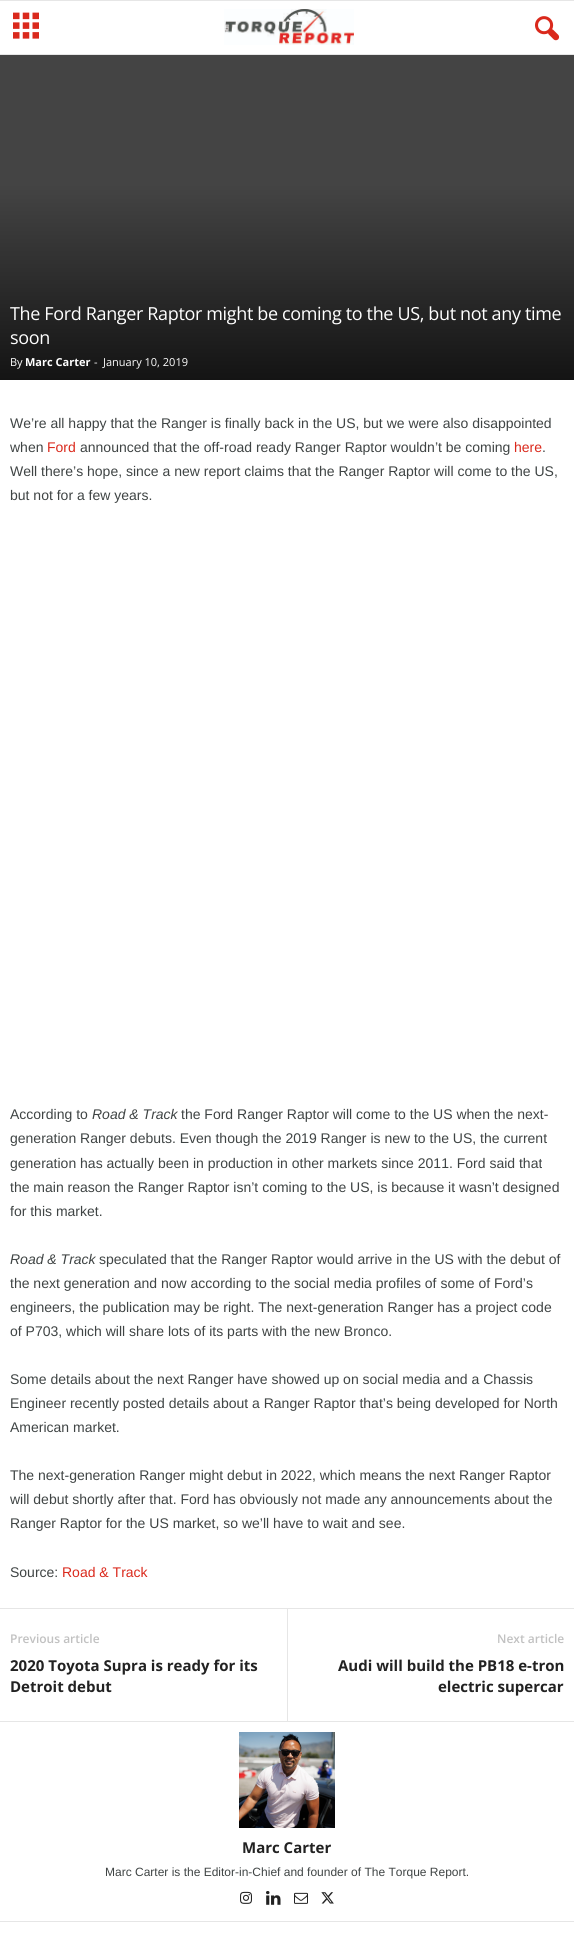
import math
import cairo


def use_color(cr, r, g, b):
  cr.set_source_rgb(r / 255, g / 255, b / 255)

def text(cr, x, y, s, family, size, color, bold=False, italic=False):
  cr.select_font_face(family, cairo.FONT_SLANT_ITALIC if italic else cairo.FONT_SLANT_NORMAL, cairo.FONT_WEIGHT_BOLD if bold else cairo.FONT_WEIGHT_NORMAL)
  cr.set_font_size(size)
  use_color(cr, *color)
  cr.move_to(x, y)
  cr.show_text(s)

def spaced_text(cr, x, y, s, letter, word):
  cr.move_to(x, y)
  for ch in s:
    cr.show_text(ch)
    cr.rel_move_to(letter + word * (ch == ' '), 0)

def box(cr, x, y, w, h, *color):
  use_color(cr, *color)
  cr.rectangle(x, y, w, h)
  cr.fill()

def picture(cr, path, x, y, w, h):
  cr.save()
  cr.set_source_surface(cairo.ImageSurface.create_from_png(path), x, y)
  cr.rectangle(x, y, w, h)
  cr.fill()
  cr.restore()

def draw(cr):
  use_color(cr, 255, 255, 255)
  cr.paint()
  box(cr, 0, 0, 574, 1, 230, 230, 230)
  box(cr, 0, 54, 574, 1, 230, 230, 230)
  picture(cr, "img_01.png", 13, 12, 26, 27)
  picture(cr, "img_02.png", 224, 9, 130, 36)
  picture(cr, "img_03.png", 535, 16, 25, 25)
  box(cr, 0, 55, 574, 129, 68, 68, 68)
  gradient = cairo.LinearGradient(287, 184, 287, 380)
  gradient.add_color_stop_rgba(0, 0.267, 0.267, 0.267, 1)
  gradient.add_color_stop_rgba(1, 0.078, 0.078, 0.078, 1)
  cr.set_source(gradient)
  cr.rectangle(0, 184, 574, 196)
  cr.fill()
  box(cr, 0, 1608, 574, 1, 230, 230, 230)
  box(cr, 287, 1609, 1, 112, 230, 230, 230)
  box(cr, 0, 1721, 574, 1, 230, 230, 230)
  picture(cr, "img_04.png", 239, 1732, 96, 96)
  picture(cr, "img_05.png", 240, 1891, 12, 13)
  picture(cr, "img_06.png", 266, 1891, 15, 14)
  picture(cr, "img_07.png", 294, 1892, 14, 12)
  picture(cr, "img_08.png", 321, 1892, 13, 12)
  box(cr, 0, 1921, 574, 1, 230, 230, 230)
  cr.select_font_face("Open Sans")
  cr.set_font_size(18)
  use_color(cr, 255, 255, 255)
  spaced_text(cr, 10, 320, "The Ford Ranger Raptor might be coming to the US, but not any time", -0.35, 0)
  spaced_text(cr, 10, 344, "soon", -0.35, 0)
  text(cr, 10, 366, "By", "Open Sans", 11, (255, 255, 255))
  text(cr, 25, 366, "Marc Carter", "Open Sans", 11, (255, 255, 255), bold=True)
  text(cr, 94, 366, "-", "Open Sans", 11, (255, 255, 255))
  text(cr, 103, 366, "January 10, 2019", "Open Sans", 11, (255, 255, 255))
  text(cr, 10, 428, "We’re all happy that the Ranger is finally back in the US, but we were also disappointed", "Liberation Sans", 14, (63, 68, 68))
  text(cr, 10, 452, "when", "Liberation Sans", 14, (63, 68, 68))
  text(cr, 47, 452, "Ford", "Liberation Sans", 14, (218, 41, 28))
  text(cr, 80, 452, "announced that the off-road ready Ranger Raptor wouldn’t be coming", "Liberation Sans", 14, (63, 68, 68))
  text(cr, 514, 452, "here", "Liberation Sans", 14, (218, 41, 28))
  text(cr, 542, 452, ".", "Liberation Sans", 14, (63, 68, 68))
  text(cr, 10, 476, "Well there’s hope, since a new report claims that the Ranger Raptor will come to the US,", "Liberation Sans", 14, (63, 68, 68))
  text(cr, 10, 500, "but not for a few years.", "Liberation Sans", 14, (63, 68, 68))
  text(cr, 10, 1119, "According to", "Liberation Sans", 14, (63, 68, 68))
  text(cr, 92, 1119, "Road & Track", "Liberation Sans", 14, (63, 68, 68), italic=True)
  text(cr, 181, 1119, "the Ford Ranger Raptor will come to the US when the next-", "Liberation Sans", 14, (63, 68, 68))
  text(cr, 10, 1143, "generation Ranger debuts. Even though the 2019 Ranger is new to the US, the current", "Liberation Sans", 14, (63, 68, 68))
  text(cr, 10, 1168, "generation has actually been in production in other markets since 2011. Ford said that", "Liberation Sans", 14, (63, 68, 68))
  text(cr, 10, 1192, "the main reason the Ranger Raptor isn’t coming to the US, is because it wasn’t designed", "Liberation Sans", 14, (63, 68, 68))
  text(cr, 10, 1216, "for this market.", "Liberation Sans", 14, (63, 68, 68))
  text(cr, 10, 1264, "Road & Track", "Liberation Sans", 14, (63, 68, 68), italic=True)
  text(cr, 99, 1264, "speculated that the Ranger Raptor would arrive in the US with the debut of", "Liberation Sans", 14, (63, 68, 68))
  text(cr, 10, 1288, "the next generation and now according to the social media profiles of some of Ford’s", "Liberation Sans", 14, (63, 68, 68))
  text(cr, 10, 1312, "engineers, the publication may be right. The next-generation Ranger has a project code", "Liberation Sans", 14, (63, 68, 68))
  text(cr, 10, 1336, "of P703, which will share lots of its parts with the new Bronco.", "Liberation Sans", 14, (63, 68, 68))
  text(cr, 10, 1384, "Some details about the next Ranger have showed up on social media and a Chassis", "Liberation Sans", 14, (63, 68, 68))
  text(cr, 10, 1408, "Engineer recently posted details about a Ranger Raptor that’s being developed for North", "Liberation Sans", 14, (63, 68, 68))
  text(cr, 10, 1432, "American market.", "Liberation Sans", 14, (63, 68, 68))
  text(cr, 10, 1480, "The next-generation Ranger might debut in 2022, which means the next Ranger Raptor", "Liberation Sans", 14, (63, 68, 68))
  text(cr, 10, 1504, "will debut shortly after that. Ford has obviously not made any announcements about the", "Liberation Sans", 14, (63, 68, 68))
  text(cr, 10, 1528, "Ranger Raptor for the US market, so we’ll have to wait and see.", "Liberation Sans", 14, (63, 68, 68))
  text(cr, 10, 1577, "Source:", "Liberation Sans", 14, (63, 68, 68))
  text(cr, 62, 1577, "Road & Track", "Liberation Sans", 14, (218, 41, 28))
  text(cr, 10, 1643, "Previous article", "Open Sans SemiBold", 12, (193, 193, 193))
  text(cr, 10, 1671, "2020 Toyota Supra is ready for its", "Open Sans", 15, (34, 34, 34), bold=True)
  text(cr, 10, 1692, "Detroit debut", "Open Sans", 15, (34, 34, 34), bold=True)
  text(cr, 497, 1643, "Next article", "Open Sans SemiBold", 12, (193, 193, 193))
  text(cr, 338, 1671, "Audi will build the PB18 e-tron", "Open Sans", 15, (34, 34, 34), bold=True)
  text(cr, 438, 1692, "electric supercar", "Open Sans", 15, (34, 34, 34), bold=True)
  text(cr, 242, 1853, "Marc Carter", "Open Sans", 15, (34, 34, 34), bold=True)
  text(cr, 105, 1876, "Marc Carter is the Editor-in-Chief and founder of The Torque Report.", "Liberation Sans", 12, (63, 68, 68))


surface = cairo.ImageSurface(cairo.FORMAT_RGB24, 574, 1933)
cr = cairo.Context(surface)
options = cairo.FontOptions()
options.set_hint_metrics(cairo.HINT_METRICS_OFF)
options.set_hint_style(cairo.HINT_STYLE_NONE)
cr.set_font_options(options)
cr.set_miter_limit(4)
draw(cr)
surface.write_to_png("out.png")
